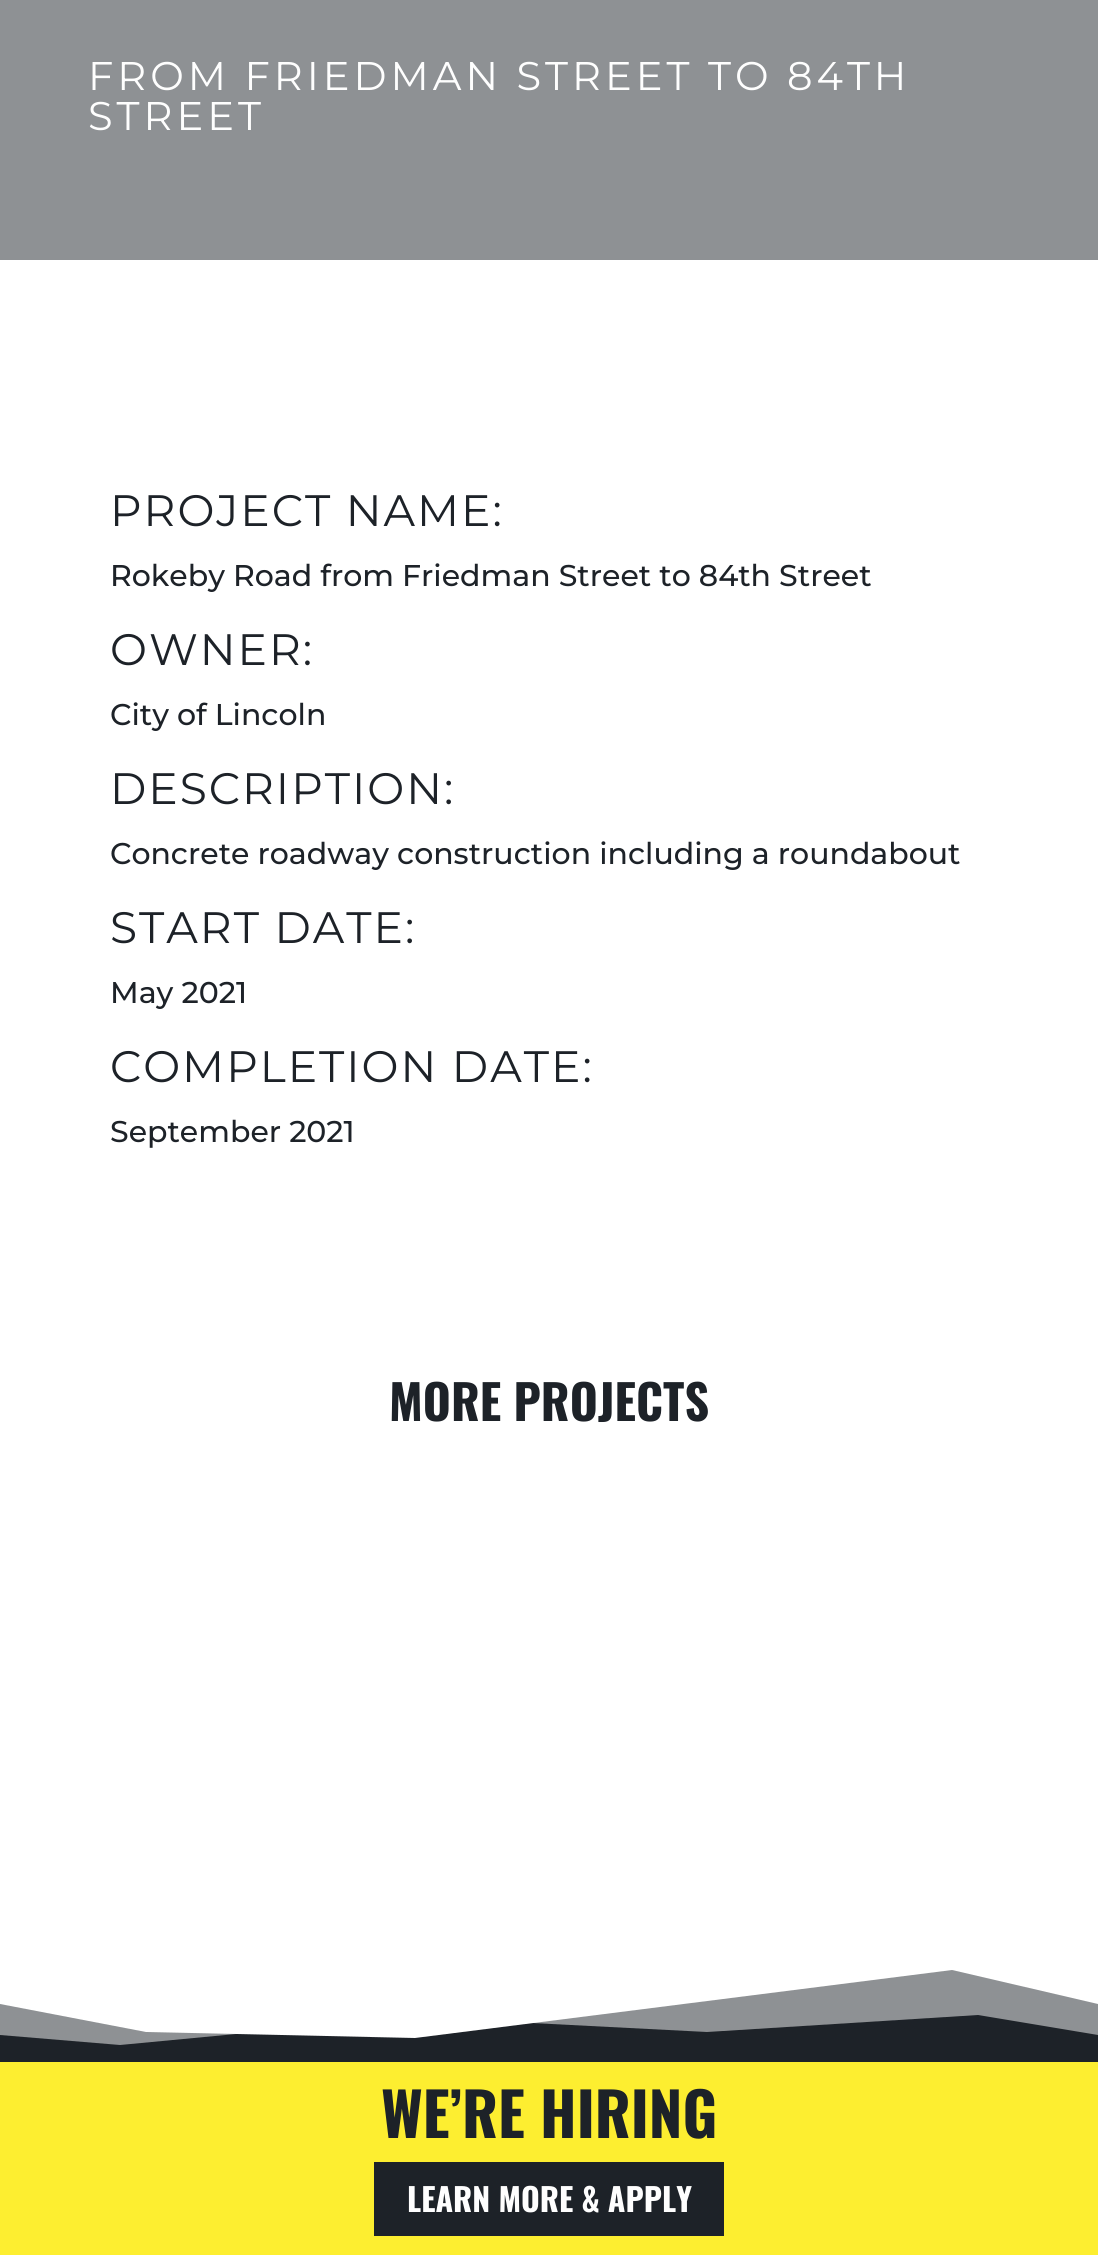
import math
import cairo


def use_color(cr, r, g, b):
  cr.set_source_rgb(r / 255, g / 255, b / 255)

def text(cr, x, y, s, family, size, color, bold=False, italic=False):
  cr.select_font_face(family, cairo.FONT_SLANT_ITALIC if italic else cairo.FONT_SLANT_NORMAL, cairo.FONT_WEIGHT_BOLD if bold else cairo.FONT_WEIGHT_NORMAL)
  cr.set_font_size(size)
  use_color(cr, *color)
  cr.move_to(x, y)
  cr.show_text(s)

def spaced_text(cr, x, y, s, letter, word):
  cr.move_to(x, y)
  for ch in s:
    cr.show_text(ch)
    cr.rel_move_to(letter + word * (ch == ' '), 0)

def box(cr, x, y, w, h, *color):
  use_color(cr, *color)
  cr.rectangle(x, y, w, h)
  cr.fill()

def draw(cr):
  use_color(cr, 255, 255, 255)
  cr.paint()
  box(cr, 0, 0, 1098, 260, 142, 145, 148)
  box(cr, 0, 2015, 1098, 47, 29, 34, 40)
  use_color(cr, 142, 145, 148)
  cr.new_path()
  cr.move_to(1098, 2035)
  cr.line_to(978, 2015)
  cr.line_to(707, 2032)
  cr.line_to(415, 2017)
  cr.line_to(120, 2045)
  cr.line_to(0, 2035)
  cr.line_to(0, 1970)
  cr.line_to(1098, 1970)
  cr.close_path()
  cr.fill()
  use_color(cr, 255, 255, 255)
  cr.new_path()
  cr.move_to(1098, 1970)
  cr.line_to(1098, 2004)
  cr.line_to(952, 1970)
  cr.line_to(415, 2038)
  cr.line_to(146, 2032)
  cr.line_to(0, 2004)
  cr.line_to(0, 1970)
  cr.close_path()
  cr.fill()
  box(cr, 0, 2062, 1098, 193, 253, 238, 48)
  box(cr, 374, 2162, 350, 74, 29, 34, 40)
  cr.select_font_face("Montserrat")
  cr.set_font_size(40)
  use_color(cr, 254, 254, 254)
  spaced_text(cr, 88, 90, "FROM FRIEDMAN STREET TO 84TH", 4, 0)
  spaced_text(cr, 88, 130, "STREET", 4, 0)
  cr.set_font_size(44)
  use_color(cr, 29, 34, 40)
  spaced_text(cr, 110, 526, "PROJECT NAME:", 2, 0)
  text(cr, 110, 586, "Rokeby Road from Friedman Street to 84th Street", "Montserrat Medium", 30, (29, 34, 40))
  cr.select_font_face("Montserrat")
  cr.set_font_size(44)
  spaced_text(cr, 110, 665, "OWNER:", 2, 0)
  text(cr, 110, 725, "City of Lincoln", "Montserrat Medium", 30, (29, 34, 40))
  cr.select_font_face("Montserrat")
  cr.set_font_size(44)
  spaced_text(cr, 110, 804, "DESCRIPTION:", 2, 0)
  text(cr, 110, 864, "Concrete roadway construction including a roundabout", "Montserrat Medium", 30, (29, 34, 40))
  cr.select_font_face("Montserrat")
  cr.set_font_size(44)
  spaced_text(cr, 110, 943, "START DATE:", 2, 0)
  text(cr, 110, 1003, "May 2021", "Montserrat Medium", 30, (29, 34, 40))
  cr.select_font_face("Montserrat")
  cr.set_font_size(44)
  spaced_text(cr, 110, 1082, "COMPLETION DATE:", 2, 0)
  text(cr, 110, 1142, "September 2021", "Montserrat Medium", 30, (29, 34, 40))
  text(cr, 389, 1421, "MORE PROJECTS", "Oswald", 48, (29, 34, 40), bold=True)
  text(cr, 381, 2138, "WE’RE HIRING", "Oswald", 60, (29, 34, 40), bold=True)
  text(cr, 407, 2212, "LEARN MORE & APPLY", "Oswald", 32, (254, 254, 254), bold=True)


surface = cairo.ImageSurface(cairo.FORMAT_RGB24, 1098, 2255)
cr = cairo.Context(surface)
options = cairo.FontOptions()
options.set_hint_metrics(cairo.HINT_METRICS_OFF)
options.set_hint_style(cairo.HINT_STYLE_NONE)
cr.set_font_options(options)
cr.set_miter_limit(4)
draw(cr)
surface.write_to_png("out.png")
